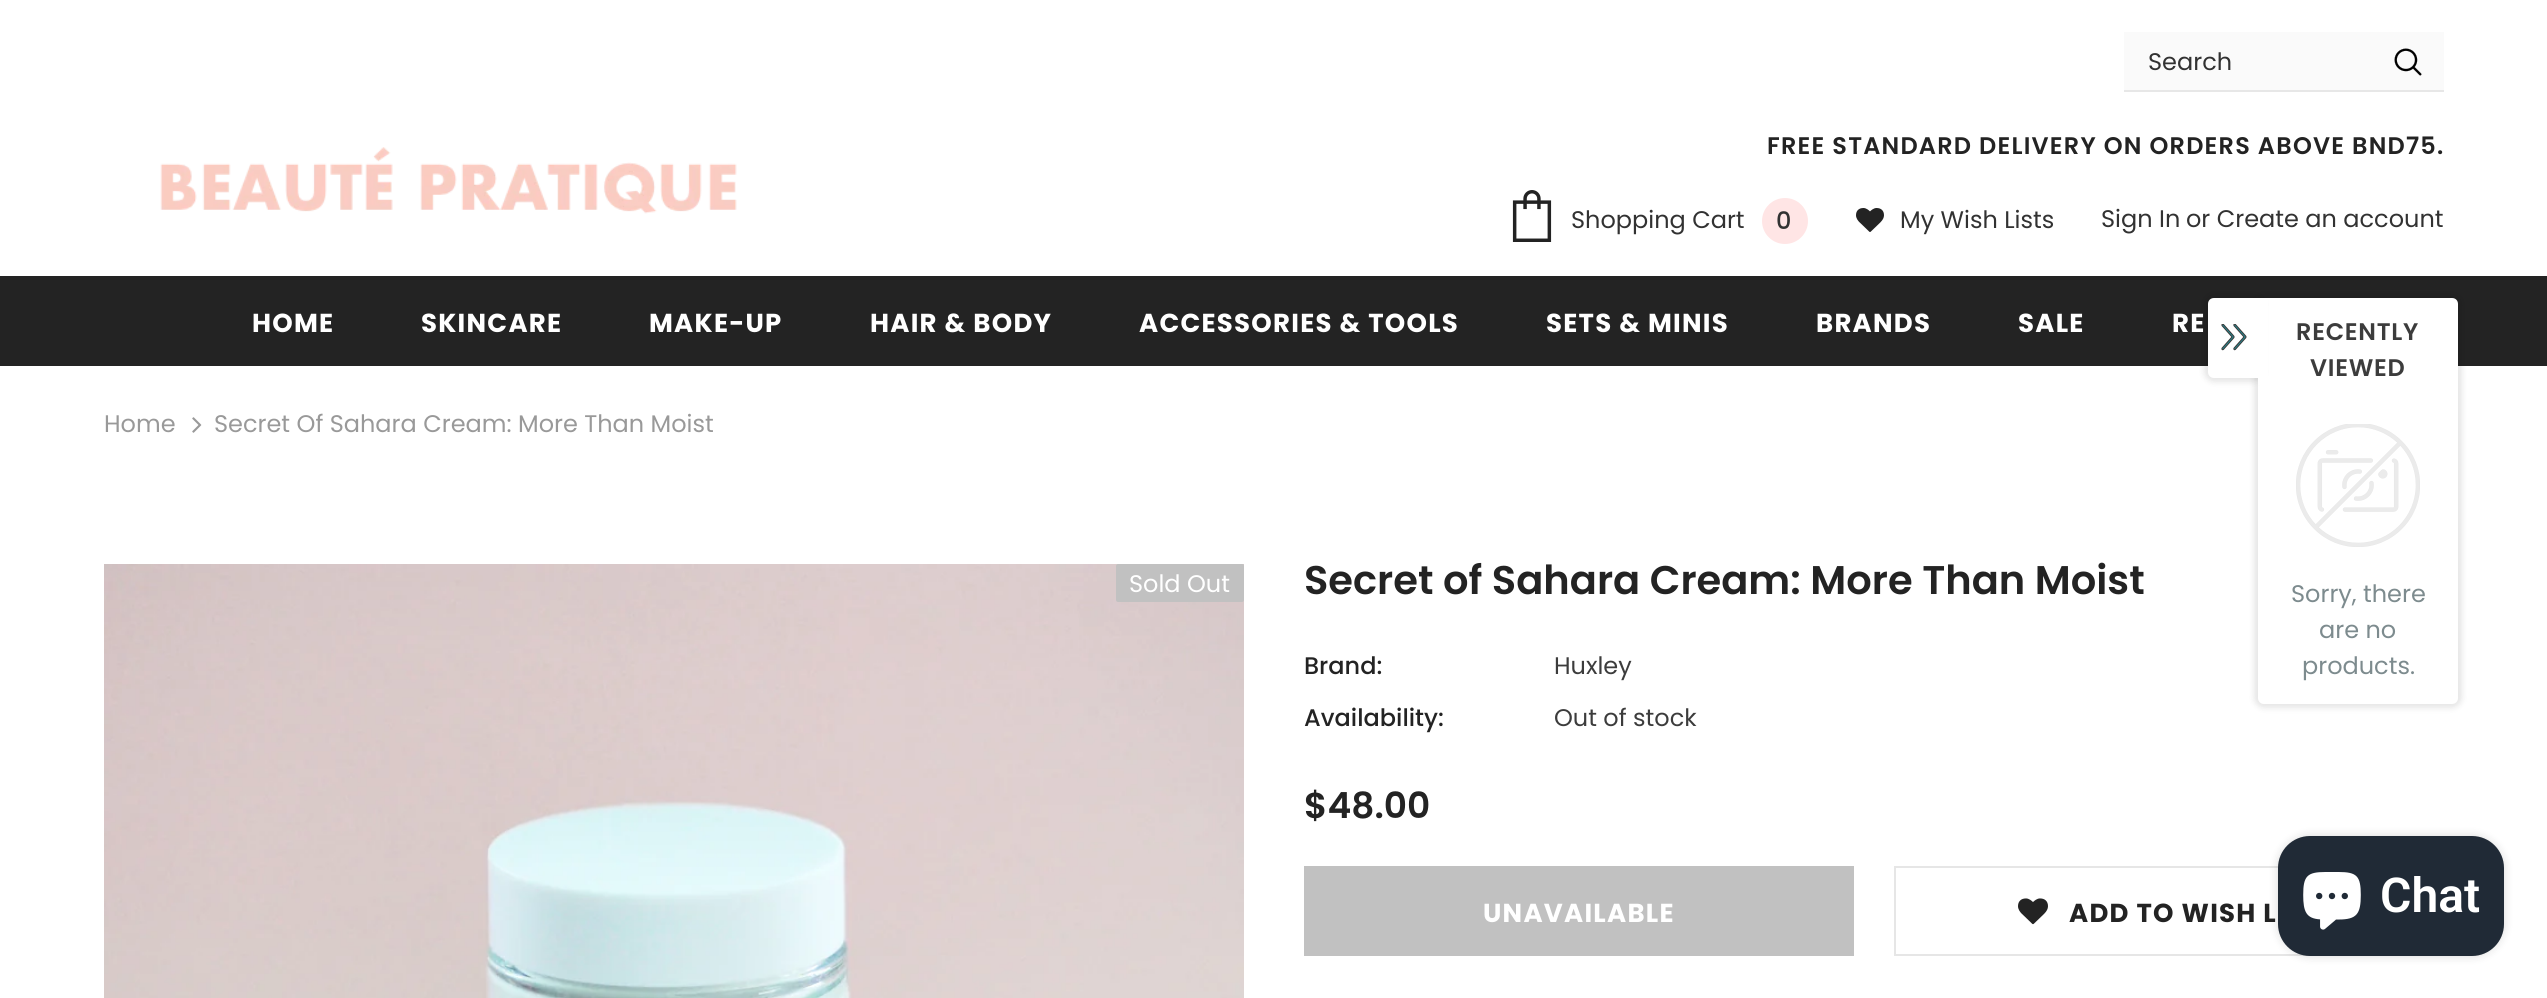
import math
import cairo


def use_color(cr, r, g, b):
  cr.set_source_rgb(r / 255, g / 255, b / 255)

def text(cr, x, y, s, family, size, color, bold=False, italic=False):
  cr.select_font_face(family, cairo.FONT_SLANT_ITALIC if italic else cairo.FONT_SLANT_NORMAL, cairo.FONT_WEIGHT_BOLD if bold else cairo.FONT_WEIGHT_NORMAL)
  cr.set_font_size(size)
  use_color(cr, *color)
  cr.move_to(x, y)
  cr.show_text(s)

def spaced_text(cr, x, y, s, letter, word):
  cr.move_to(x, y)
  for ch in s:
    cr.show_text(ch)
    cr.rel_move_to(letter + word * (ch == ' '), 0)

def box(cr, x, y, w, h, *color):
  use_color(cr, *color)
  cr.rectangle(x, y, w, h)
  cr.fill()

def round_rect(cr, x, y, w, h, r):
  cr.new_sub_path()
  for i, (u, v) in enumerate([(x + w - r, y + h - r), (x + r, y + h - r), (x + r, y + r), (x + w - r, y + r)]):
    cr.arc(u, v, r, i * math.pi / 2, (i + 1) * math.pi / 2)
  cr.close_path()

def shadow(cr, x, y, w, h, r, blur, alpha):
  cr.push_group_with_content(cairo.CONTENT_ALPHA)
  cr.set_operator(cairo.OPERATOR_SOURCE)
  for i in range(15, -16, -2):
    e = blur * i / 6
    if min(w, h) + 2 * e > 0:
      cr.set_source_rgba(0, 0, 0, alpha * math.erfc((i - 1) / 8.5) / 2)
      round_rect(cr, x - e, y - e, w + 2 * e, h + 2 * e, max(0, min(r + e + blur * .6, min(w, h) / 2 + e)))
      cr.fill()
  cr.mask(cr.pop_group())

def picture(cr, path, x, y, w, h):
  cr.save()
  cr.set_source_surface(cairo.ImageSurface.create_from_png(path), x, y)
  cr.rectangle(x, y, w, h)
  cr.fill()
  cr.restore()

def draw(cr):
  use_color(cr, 255, 255, 255)
  cr.paint()
  box(cr, 2124, 32, 320, 58, 250, 250, 250)
  box(cr, 2124, 90, 320, 2, 231, 231, 231)
  picture(cr, "img_01.png", 2394, 48, 28, 28)
  picture(cr, "img_02.png", 160, 147, 577, 67)
  picture(cr, "img_03.png", 1512, 190, 40, 52)
  use_color(cr, 255, 229, 229)
  cr.arc(1785, 221, 23, 0, 2 * math.pi)
  cr.fill()
  picture(cr, "img_04.png", 1856, 208, 28, 24)
  box(cr, 0, 276, 2547, 90, 35, 35, 35)
  picture(cr, "img_05.png", 192, 417, 10, 16)
  picture(cr, "img_06.png", 104, 564, 1140, 434)
  use_color(cr, 193, 193, 193)
  round_rect(cr, 1116, 564, 128, 38, 2)
  cr.fill()
  box(cr, 1304, 866, 550, 90, 193, 193, 193)
  cr.rectangle(1895, 867, 548, 88)
  use_color(cr, 230, 230, 230)
  cr.stroke()
  picture(cr, "img_07.png", 2018, 898, 30, 27)
  use_color(cr, 0, 0, 0)
  shadow(cr, 2254, 294, 208, 414, 10, 3, 0.1)
  use_color(cr, 255, 255, 255)
  cr.new_path()
  cr.move_to(2258, 298)
  cr.line_to(2452, 298)
  cr.curve_to(2455.5, 298, 2458, 300.5, 2458, 304)
  cr.line_to(2458, 698)
  cr.curve_to(2458, 701.5, 2455.5, 704, 2452, 704)
  cr.line_to(2264, 704)
  cr.curve_to(2260.5, 704, 2258, 701.5, 2258, 698)
  cr.close_path()
  cr.fill()
  use_color(cr, 0, 0, 0)
  shadow(cr, 2204, 294, 60, 88, 10, 3, 0.1)
  use_color(cr, 255, 255, 255)
  cr.new_path()
  cr.move_to(2214, 298)
  cr.line_to(2260, 298)
  cr.line_to(2260, 378)
  cr.line_to(2214, 378)
  cr.curve_to(2210.5, 378, 2208, 375.5, 2208, 372)
  cr.line_to(2208, 304)
  cr.curve_to(2208, 300.5, 2210.5, 298, 2214, 298)
  cr.close_path()
  cr.fill()
  picture(cr, "img_08.png", 2221, 324, 26, 27)
  box(cr, 2258, 298, 10, 87, 255, 255, 255)
  picture(cr, "img_09.png", 2296, 424, 124, 123)
  use_color(cr, 0, 0, 0)
  shadow(cr, 2278, 836, 226, 120, 32, 5, 0.15)
  use_color(cr, 32, 42, 54)
  round_rect(cr, 2278, 836, 226, 120, 32)
  cr.fill()
  picture(cr, "img_10.png", 2303, 872, 58, 58)
  text(cr, 2148, 70, "Search", "Poppins", 24, (50, 50, 50))
  cr.select_font_face("Poppins SemiBold")
  use_color(cr, 35, 35, 35)
  spaced_text(cr, 1767, 154, "FREE STANDARD DELIVERY ON ORDERS ABOVE BND75.", 1.2, 0)
  text(cr, 1571, 228, "Shopping Cart", "Poppins", 24, (50, 50, 50))
  text(cr, 1776, 229, "0", "Poppins Medium", 24, (50, 50, 50))
  text(cr, 1900, 228, "My Wish Lists", "Poppins", 24, (50, 50, 50))
  text(cr, 2101, 227, "Sign In", "Poppins", 24, (50, 50, 50))
  text(cr, 2186, 227, "or Create an account", "Poppins", 24, (50, 50, 50))
  cr.select_font_face("Poppins", cairo.FONT_SLANT_NORMAL, cairo.FONT_WEIGHT_BOLD)
  cr.set_font_size(26)
  use_color(cr, 255, 255, 255)
  spaced_text(cr, 252, 332, "HOME", 1.25, 0)
  spaced_text(cr, 421, 332, "SKINCARE", 1.25, 0)
  spaced_text(cr, 649, 332, "MAKE-UP", 1.25, 0)
  spaced_text(cr, 870, 332, "HAIR & BODY", 1.25, 0)
  spaced_text(cr, 1139, 332, "ACCESSORIES & TOOLS", 1.25, 0)
  spaced_text(cr, 1546, 332, "SETS & MINIS", 1.25, 0)
  spaced_text(cr, 1816, 332, "BRANDS", 1.25, 0)
  spaced_text(cr, 2018, 332, "SALE", 1.25, 0)
  spaced_text(cr, 2172, 332, "RE", 1.25, 0)
  text(cr, 104, 432, "Home", "Poppins", 24, (153, 153, 153))
  text(cr, 214, 432, "Secret Of Sahara Cream: More Than Moist", "Poppins", 24, (153, 153, 153))
  text(cr, 1129, 592, "Sold Out", "Poppins", 24, (255, 255, 255))
  text(cr, 1304, 594, "Secret of Sahara Cream: More Than Moist", "Poppins SemiBold", 40, (35, 35, 35))
  text(cr, 1304, 674, "Brand:", "Poppins Medium", 24, (35, 35, 35))
  text(cr, 1554, 674, "Huxley", "Poppins", 24, (60, 60, 60))
  text(cr, 1304, 726, "Availability:", "Poppins Medium", 24, (35, 35, 35))
  text(cr, 1554, 726, "Out of stock", "Poppins", 24, (60, 60, 60))
  text(cr, 1304, 818, "$48.00", "Poppins SemiBold", 36, (35, 35, 35))
  cr.select_font_face("Poppins", cairo.FONT_SLANT_NORMAL, cairo.FONT_WEIGHT_BOLD)
  cr.set_font_size(26)
  use_color(cr, 255, 255, 255)
  spaced_text(cr, 1483, 922, "UNAVAILABLE", 1.25, 0)
  use_color(cr, 35, 35, 35)
  spaced_text(cr, 2069, 922, "ADD TO WISH L", 1.25, 0)
  cr.select_font_face("Poppins SemiBold")
  cr.set_font_size(24)
  use_color(cr, 60, 60, 60)
  spaced_text(cr, 2296, 340, "RECENTLY", 0.75, 0)
  spaced_text(cr, 2310, 376, "VIEWED", 0.75, 0)
  text(cr, 2291, 602, "Sorry, there", "Poppins", 24, (125, 139, 142))
  text(cr, 2319, 638, "are no", "Poppins", 24, (125, 139, 142))
  text(cr, 2302, 674, "products.", "Poppins", 24, (125, 139, 142))
  text(cr, 2380, 912, "Chat", "Roboto SemiBold", 48, (255, 255, 255))


surface = cairo.ImageSurface(cairo.FORMAT_RGB24, 2547, 998)
cr = cairo.Context(surface)
options = cairo.FontOptions()
options.set_hint_metrics(cairo.HINT_METRICS_OFF)
options.set_hint_style(cairo.HINT_STYLE_NONE)
cr.set_font_options(options)
cr.set_miter_limit(4)
draw(cr)
surface.write_to_png("out.png")
